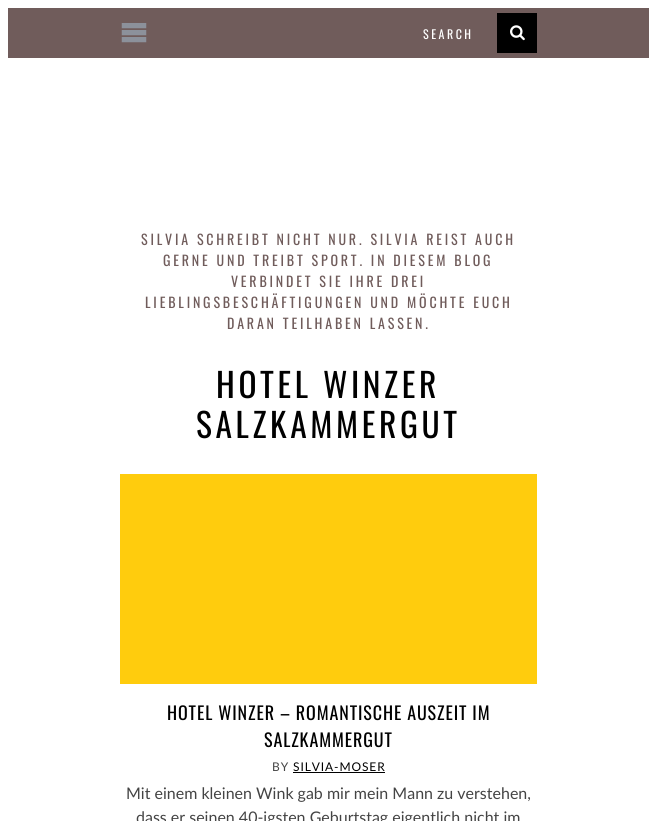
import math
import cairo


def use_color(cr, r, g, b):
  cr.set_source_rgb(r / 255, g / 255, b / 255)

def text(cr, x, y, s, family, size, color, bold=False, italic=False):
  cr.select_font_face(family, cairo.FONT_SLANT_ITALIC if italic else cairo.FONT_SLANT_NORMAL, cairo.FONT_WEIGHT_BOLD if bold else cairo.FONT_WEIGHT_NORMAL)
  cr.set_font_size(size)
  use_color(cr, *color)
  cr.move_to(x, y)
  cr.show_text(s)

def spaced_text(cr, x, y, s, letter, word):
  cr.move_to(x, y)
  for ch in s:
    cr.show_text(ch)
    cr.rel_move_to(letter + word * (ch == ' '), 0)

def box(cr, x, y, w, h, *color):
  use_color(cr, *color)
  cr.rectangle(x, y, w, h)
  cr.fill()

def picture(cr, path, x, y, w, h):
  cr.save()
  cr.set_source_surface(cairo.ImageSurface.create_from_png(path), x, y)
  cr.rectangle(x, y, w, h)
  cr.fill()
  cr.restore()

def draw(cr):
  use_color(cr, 255, 255, 255)
  cr.paint()
  box(cr, 8, 8, 641, 50, 112, 92, 91)
  picture(cr, "img_01.png", 121, 23, 26, 20)
  box(cr, 497, 13, 40, 40, 0, 0, 0)
  picture(cr, "img_02.png", 510, 25, 15, 16)
  box(cr, 120, 474, 417, 210, 255, 204, 13)
  box(cr, 293, 772, 92, 1, 0, 0, 0)
  cr.select_font_face("Oswald")
  cr.set_font_size(12)
  use_color(cr, 255, 255, 255)
  spaced_text(cr, 423, 39, "SEARCH", 2.5, 0)
  cr.set_font_size(14)
  use_color(cr, 112, 92, 91)
  spaced_text(cr, 141, 245, "SILVIA SCHREIBT NICHT NUR. SILVIA REIST AUCH", 2.8, 0)
  spaced_text(cr, 163, 266, "GERNE UND TREIBT SPORT. IN DIESEM BLOG", 2.8, 0)
  spaced_text(cr, 231, 287, "VERBINDET SIE IHRE DREI", 2.8, 0)
  spaced_text(cr, 145, 308, "LIEBLINGSBESCHÄFTIGUNGEN UND MÖCHTE EUCH", 2.8, 0)
  spaced_text(cr, 227, 329, "DARAN TEILHABEN LASSEN.", 2.8, 0)
  cr.set_font_size(33.5)
  use_color(cr, 0, 0, 0)
  spaced_text(cr, 216, 398, "HOTEL WINZER", 3.6, 0)
  spaced_text(cr, 196, 438, "SALZKAMMERGUT", 3.6, 0)
  cr.set_font_size(18)
  spaced_text(cr, 167, 720, "HOTEL WINZER – ROMANTISCHE AUSZEIT IM", 0.9, 0)
  spaced_text(cr, 264, 747, "SALZKAMMERGUT", 0.9, 0)
  cr.select_font_face("Lato")
  cr.set_font_size(12)
  use_color(cr, 68, 68, 68)
  spaced_text(cr, 272, 771, "BY", 0.9, 0)
  use_color(cr, 0, 0, 0)
  spaced_text(cr, 293, 771, "SILVIA-MOSER", 0.9, 0)
  text(cr, 126, 799, "Mit einem kleinen Wink gab mir mein Mann zu verstehen,", "Lato", 16, (68, 68, 68))
  text(cr, 136, 823, "dass er seinen 40-igsten Geburtstag eigentlich nicht im", "Lato", 16, (68, 68, 68))


surface = cairo.ImageSurface(cairo.FORMAT_RGB24, 657, 821)
cr = cairo.Context(surface)
options = cairo.FontOptions()
options.set_hint_metrics(cairo.HINT_METRICS_OFF)
options.set_hint_style(cairo.HINT_STYLE_NONE)
cr.set_font_options(options)
cr.set_miter_limit(4)
draw(cr)
surface.write_to_png("out.png")
